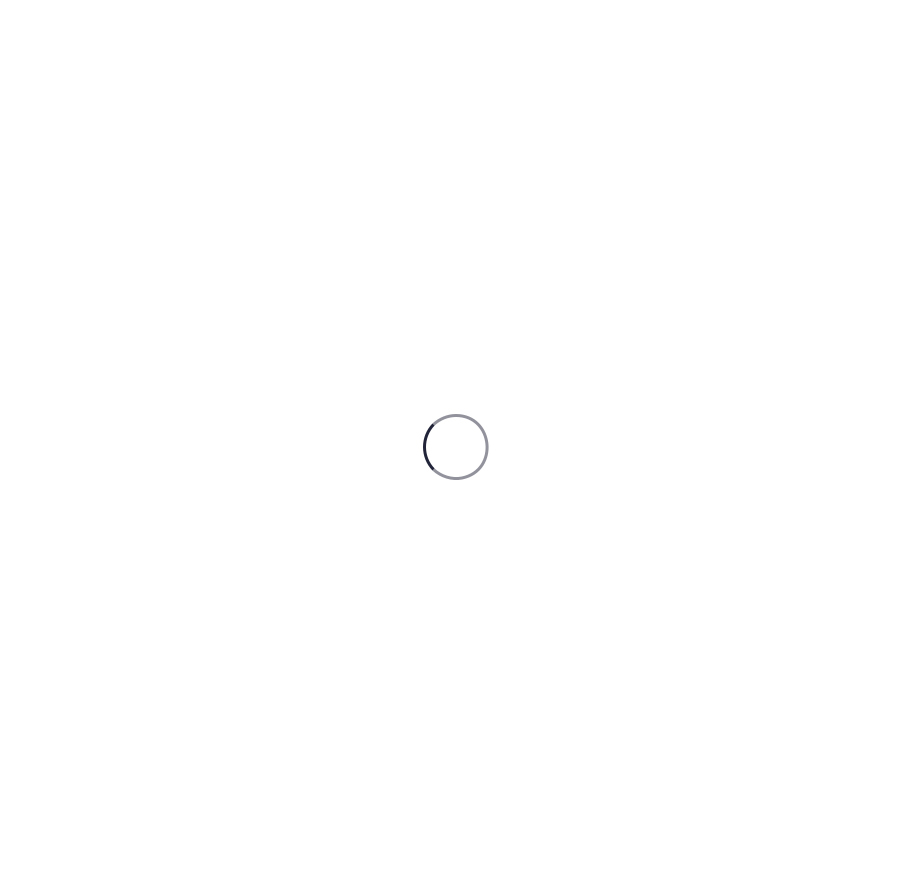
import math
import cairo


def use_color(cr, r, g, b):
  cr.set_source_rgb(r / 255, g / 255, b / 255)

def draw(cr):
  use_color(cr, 255, 255, 255)
  cr.paint()
  cr.new_path()
  cr.move_to(433.5, 424.5)
  cr.curve_to(439.5, 419, 447.5, 415.5, 456, 415.5)
  cr.curve_to(493.5, 415.5, 499, 470.5, 462, 478)
  cr.curve_to(452, 480, 441, 476.5, 433.5, 469.5)
  use_color(cr, 145, 146, 156)
  cr.set_line_width(3)
  cr.stroke()
  cr.new_path()
  cr.move_to(433.5, 469.5)
  cr.curve_to(421.5, 457, 421.5, 437, 433.5, 424.5)
  use_color(cr, 34, 36, 57)
  cr.stroke()


surface = cairo.ImageSurface(cairo.FORMAT_RGB24, 912, 894)
cr = cairo.Context(surface)
options = cairo.FontOptions()
options.set_hint_metrics(cairo.HINT_METRICS_OFF)
options.set_hint_style(cairo.HINT_STYLE_NONE)
cr.set_font_options(options)
cr.set_miter_limit(4)
draw(cr)
surface.write_to_png("out.png")
